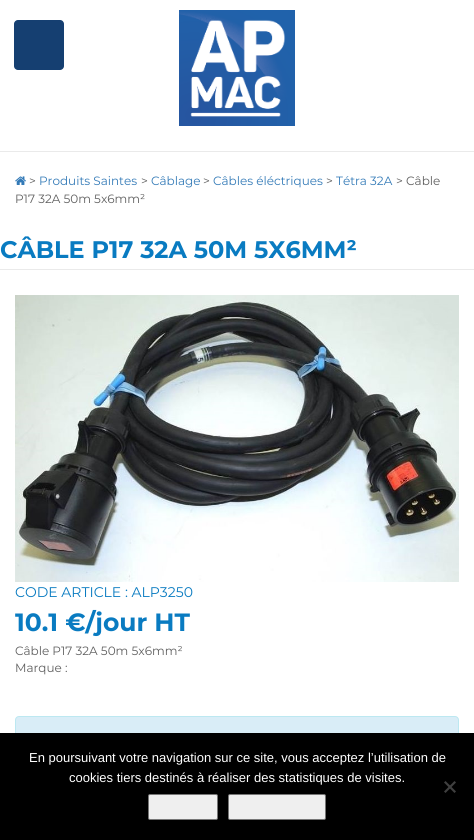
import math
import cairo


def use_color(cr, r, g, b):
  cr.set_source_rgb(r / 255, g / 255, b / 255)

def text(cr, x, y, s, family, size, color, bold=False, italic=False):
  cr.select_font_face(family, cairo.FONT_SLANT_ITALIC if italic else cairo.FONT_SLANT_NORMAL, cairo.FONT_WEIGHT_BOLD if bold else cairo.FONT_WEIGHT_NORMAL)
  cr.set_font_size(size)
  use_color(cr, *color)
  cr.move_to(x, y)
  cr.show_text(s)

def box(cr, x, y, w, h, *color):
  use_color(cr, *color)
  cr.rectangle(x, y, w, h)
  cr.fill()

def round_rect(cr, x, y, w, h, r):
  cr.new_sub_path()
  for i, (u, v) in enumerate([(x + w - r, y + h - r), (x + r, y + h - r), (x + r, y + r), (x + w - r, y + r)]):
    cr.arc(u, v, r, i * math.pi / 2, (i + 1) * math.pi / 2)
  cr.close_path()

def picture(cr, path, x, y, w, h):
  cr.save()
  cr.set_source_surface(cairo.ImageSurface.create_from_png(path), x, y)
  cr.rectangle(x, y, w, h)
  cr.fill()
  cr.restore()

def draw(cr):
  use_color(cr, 255, 255, 255)
  cr.paint()
  use_color(cr, 21, 63, 113)
  round_rect(cr, 14, 20, 50, 50, 4)
  cr.fill()
  picture(cr, "img_01.png", 179, 10, 116, 116)
  box(cr, 0, 151, 474, 1, 234, 234, 234)
  picture(cr, "img_02.png", 15, 176, 11, 9)
  box(cr, 0, 269, 474, 1, 234, 234, 234)
  picture(cr, "img_03.png", 15, 295, 444, 287)
  use_color(cr, 217, 237, 247)
  round_rect(cr, 15.5, 716.5, 443, 71, 3.5)
  cr.fill_preserve()
  use_color(cr, 188, 232, 241)
  cr.set_line_width(1)
  cr.stroke()
  box(cr, 0, 733, 474, 107, 0, 0, 0)
  use_color(cr, 64, 64, 64)
  cr.new_path()
  cr.move_to(454.5, 781)
  cr.line_to(456, 782.5)
  cr.line_to(445.5, 793)
  cr.line_to(444, 791.5)
  cr.close_path()
  cr.fill()
  cr.new_path()
  cr.move_to(444, 782.5)
  cr.line_to(445.5, 781)
  cr.line_to(456, 791.5)
  cr.line_to(454.5, 793)
  cr.close_path()
  cr.fill()
  use_color(cr, 239, 239, 239)
  round_rect(cr, 148.5, 794.5, 69, 25, 1.5)
  cr.fill_preserve()
  use_color(cr, 118, 118, 118)
  cr.stroke()
  use_color(cr, 239, 239, 239)
  round_rect(cr, 228.5, 794.5, 97, 25, 1.5)
  cr.fill_preserve()
  use_color(cr, 118, 118, 118)
  cr.stroke()
  text(cr, 29, 185, ">", "Montserrat", 12, (95, 95, 95))
  text(cr, 39, 185, "Produits Saintes", "Montserrat", 12, (51, 122, 183))
  text(cr, 141, 185, ">", "Montserrat", 12, (95, 95, 95))
  text(cr, 151, 185, "Câblage", "Montserrat", 12, (51, 122, 183))
  text(cr, 203, 185, ">", "Montserrat", 12, (95, 95, 95))
  text(cr, 213, 185, "Câbles éléctriques", "Montserrat", 12, (51, 122, 183))
  text(cr, 326, 185, ">", "Montserrat", 12, (95, 95, 95))
  text(cr, 336, 185, "Tétra 32A", "Montserrat", 12, (51, 122, 183))
  text(cr, 396, 185, "> Câble", "Montserrat", 12, (95, 95, 95))
  text(cr, 15, 203, "P17 32A 50m 5x6mm²", "Montserrat", 12, (95, 95, 95))
  text(cr, 0, 258, "CÂBLE P17 32A 50M 5X6MM²", "Montserrat", 24, (9, 123, 193), bold=True)
  text(cr, 15, 597, "CODE ARTICLE : ALP3250", "Montserrat", 14, (9, 123, 193))
  text(cr, 15, 631, "10.1 €/jour HT", "Montserrat", 25, (9, 123, 193), bold=True)
  text(cr, 15, 655, "Câble P17 32A 50m 5x6mm²", "Montserrat", 12, (95, 95, 95))
  text(cr, 15, 672, "Marque :", "Montserrat", 12, (95, 95, 95))
  text(cr, 29, 762, "En poursuivant votre navigation sur ce site, vous acceptez l’utilisation de", "Liberation Sans", 13, (255, 255, 255))
  text(cr, 69, 782, "cookies tiers destinés à réaliser des statistiques de visites.", "Liberation Sans", 13, (255, 255, 255))


surface = cairo.ImageSurface(cairo.FORMAT_RGB24, 474, 840)
cr = cairo.Context(surface)
options = cairo.FontOptions()
options.set_hint_metrics(cairo.HINT_METRICS_OFF)
options.set_hint_style(cairo.HINT_STYLE_NONE)
cr.set_font_options(options)
cr.set_miter_limit(4)
draw(cr)
surface.write_to_png("out.png")
